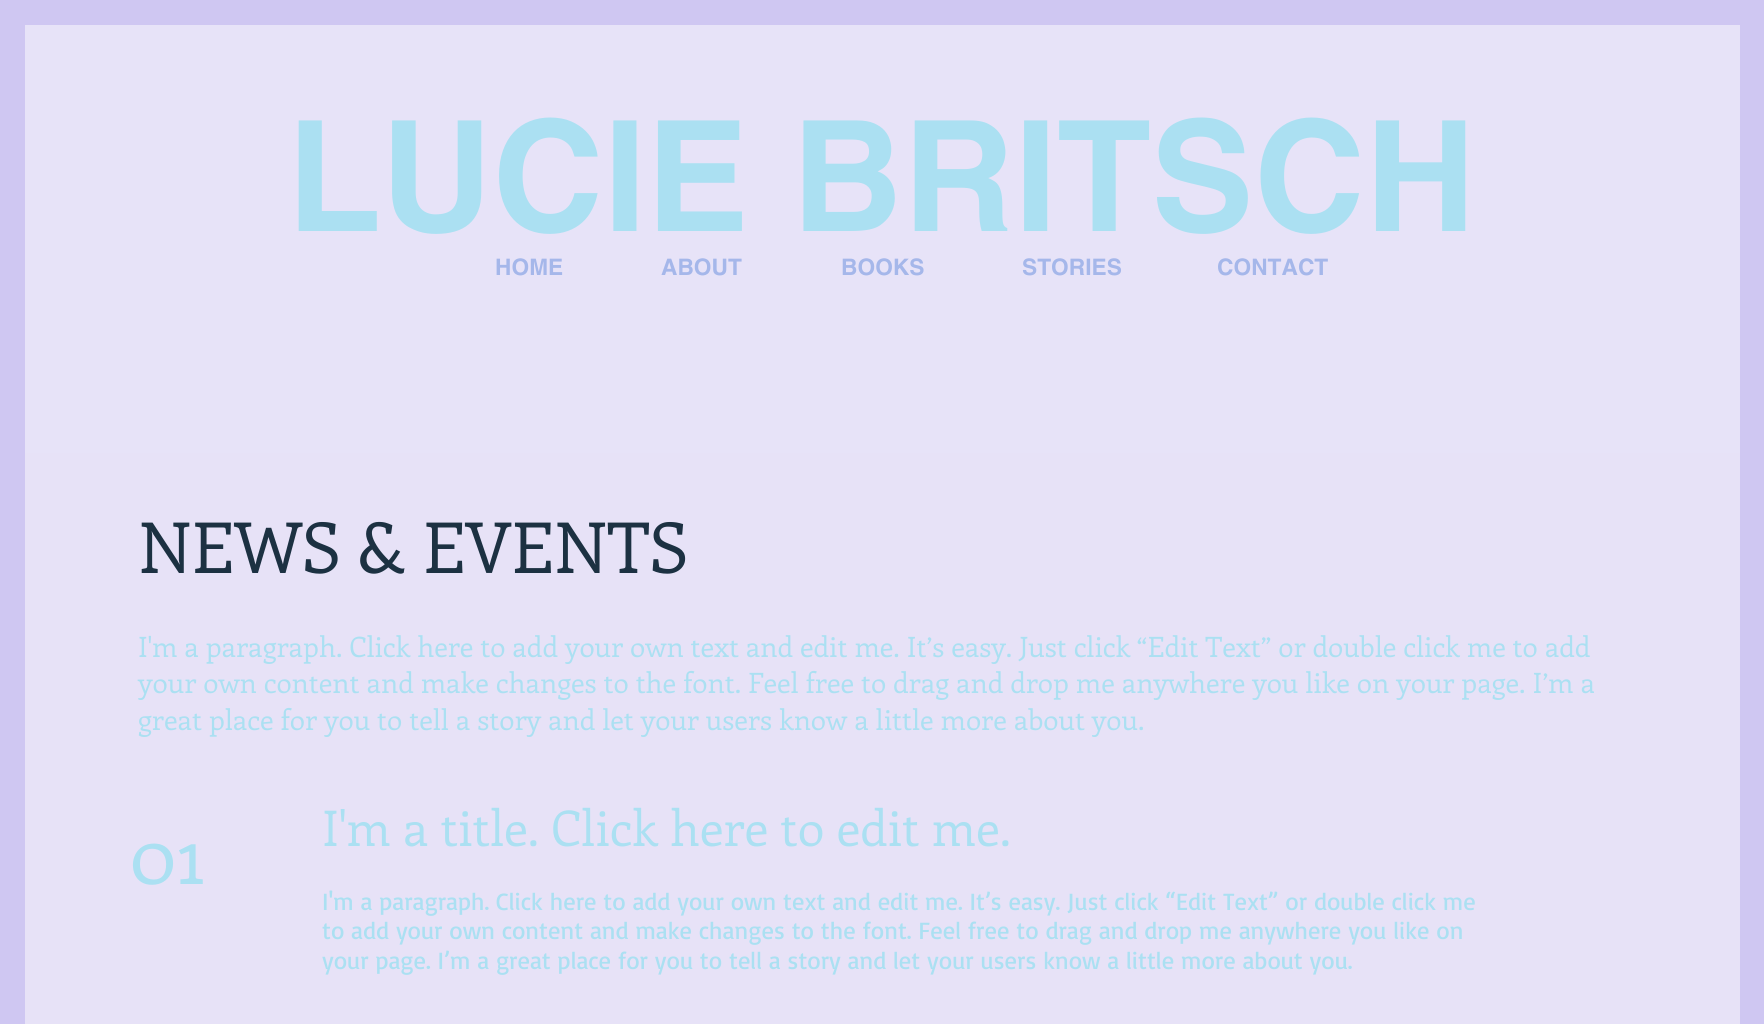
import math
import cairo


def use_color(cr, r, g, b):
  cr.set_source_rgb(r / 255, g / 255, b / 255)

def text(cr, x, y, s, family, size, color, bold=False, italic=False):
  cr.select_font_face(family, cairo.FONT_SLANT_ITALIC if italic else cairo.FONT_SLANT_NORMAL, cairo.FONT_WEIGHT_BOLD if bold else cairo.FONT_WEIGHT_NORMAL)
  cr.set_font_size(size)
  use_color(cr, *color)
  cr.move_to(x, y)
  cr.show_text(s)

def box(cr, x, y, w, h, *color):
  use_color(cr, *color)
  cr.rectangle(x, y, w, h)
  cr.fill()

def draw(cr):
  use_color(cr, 207, 199, 242)
  cr.paint()
  box(cr, 25, 25, 1715, 428, 231, 227, 248)
  box(cr, 25, 453, 1715, 571, 231, 226, 247)
  text(cr, 287, 231, "LUCIE BRITSCH", "helvetica", 154, (171, 224, 242), bold=True)
  text(cr, 495, 275, "HOME", "helvetica", 22.75, (165, 183, 234), bold=True)
  text(cr, 661, 275, "ABOUT", "helvetica", 22.75, (165, 183, 234), bold=True)
  text(cr, 841, 275, "BOOKS", "helvetica", 22.75, (165, 183, 234), bold=True)
  text(cr, 1022, 275, "STORIES", "helvetica", 22.75, (165, 183, 234), bold=True)
  text(cr, 1217, 275, "CONTACT", "helvetica", 22.75, (165, 183, 234), bold=True)
  text(cr, 138, 573, "NEWS & EVENTS", "Enriqueta", 70, (28, 49, 66))
  text(cr, 138, 657, "I'm a paragraph. Click here to add your own text and edit me. It’s easy. Just click “Edit Text” or double click me to add", "Enriqueta", 28, (171, 224, 242))
  text(cr, 138, 693, "your own content and make changes to the font. Feel free to drag and drop me anywhere you like on your page. I’m a", "Enriqueta", 28, (171, 224, 242))
  text(cr, 138, 730, "great place for you to tell a story and let your users know a little more about you.", "Enriqueta", 28, (171, 224, 242))
  text(cr, 130, 884, "01", "Enriqueta", 79, (171, 224, 242))
  text(cr, 322, 846, "I'm a title. Click here to edit me.", "Enriqueta", 49, (171, 224, 242))
  text(cr, 322, 910, "I'm a paragraph. Click here to add your own text and edit me. It’s easy. Just click “Edit Text” or double click me", "Basic", 24.5, (171, 224, 242))
  text(cr, 322, 939, "to add your own content and make changes to the font. Feel free to drag and drop me anywhere you like on", "Basic", 24.5, (171, 224, 242))
  text(cr, 322, 969, "your page. I’m a great place for you to tell a story and let your users know a little more about you.", "Basic", 24.5, (171, 224, 242))


surface = cairo.ImageSurface(cairo.FORMAT_RGB24, 1764, 1024)
cr = cairo.Context(surface)
options = cairo.FontOptions()
options.set_hint_metrics(cairo.HINT_METRICS_OFF)
options.set_hint_style(cairo.HINT_STYLE_NONE)
cr.set_font_options(options)
cr.set_miter_limit(4)
draw(cr)
surface.write_to_png("out.png")
